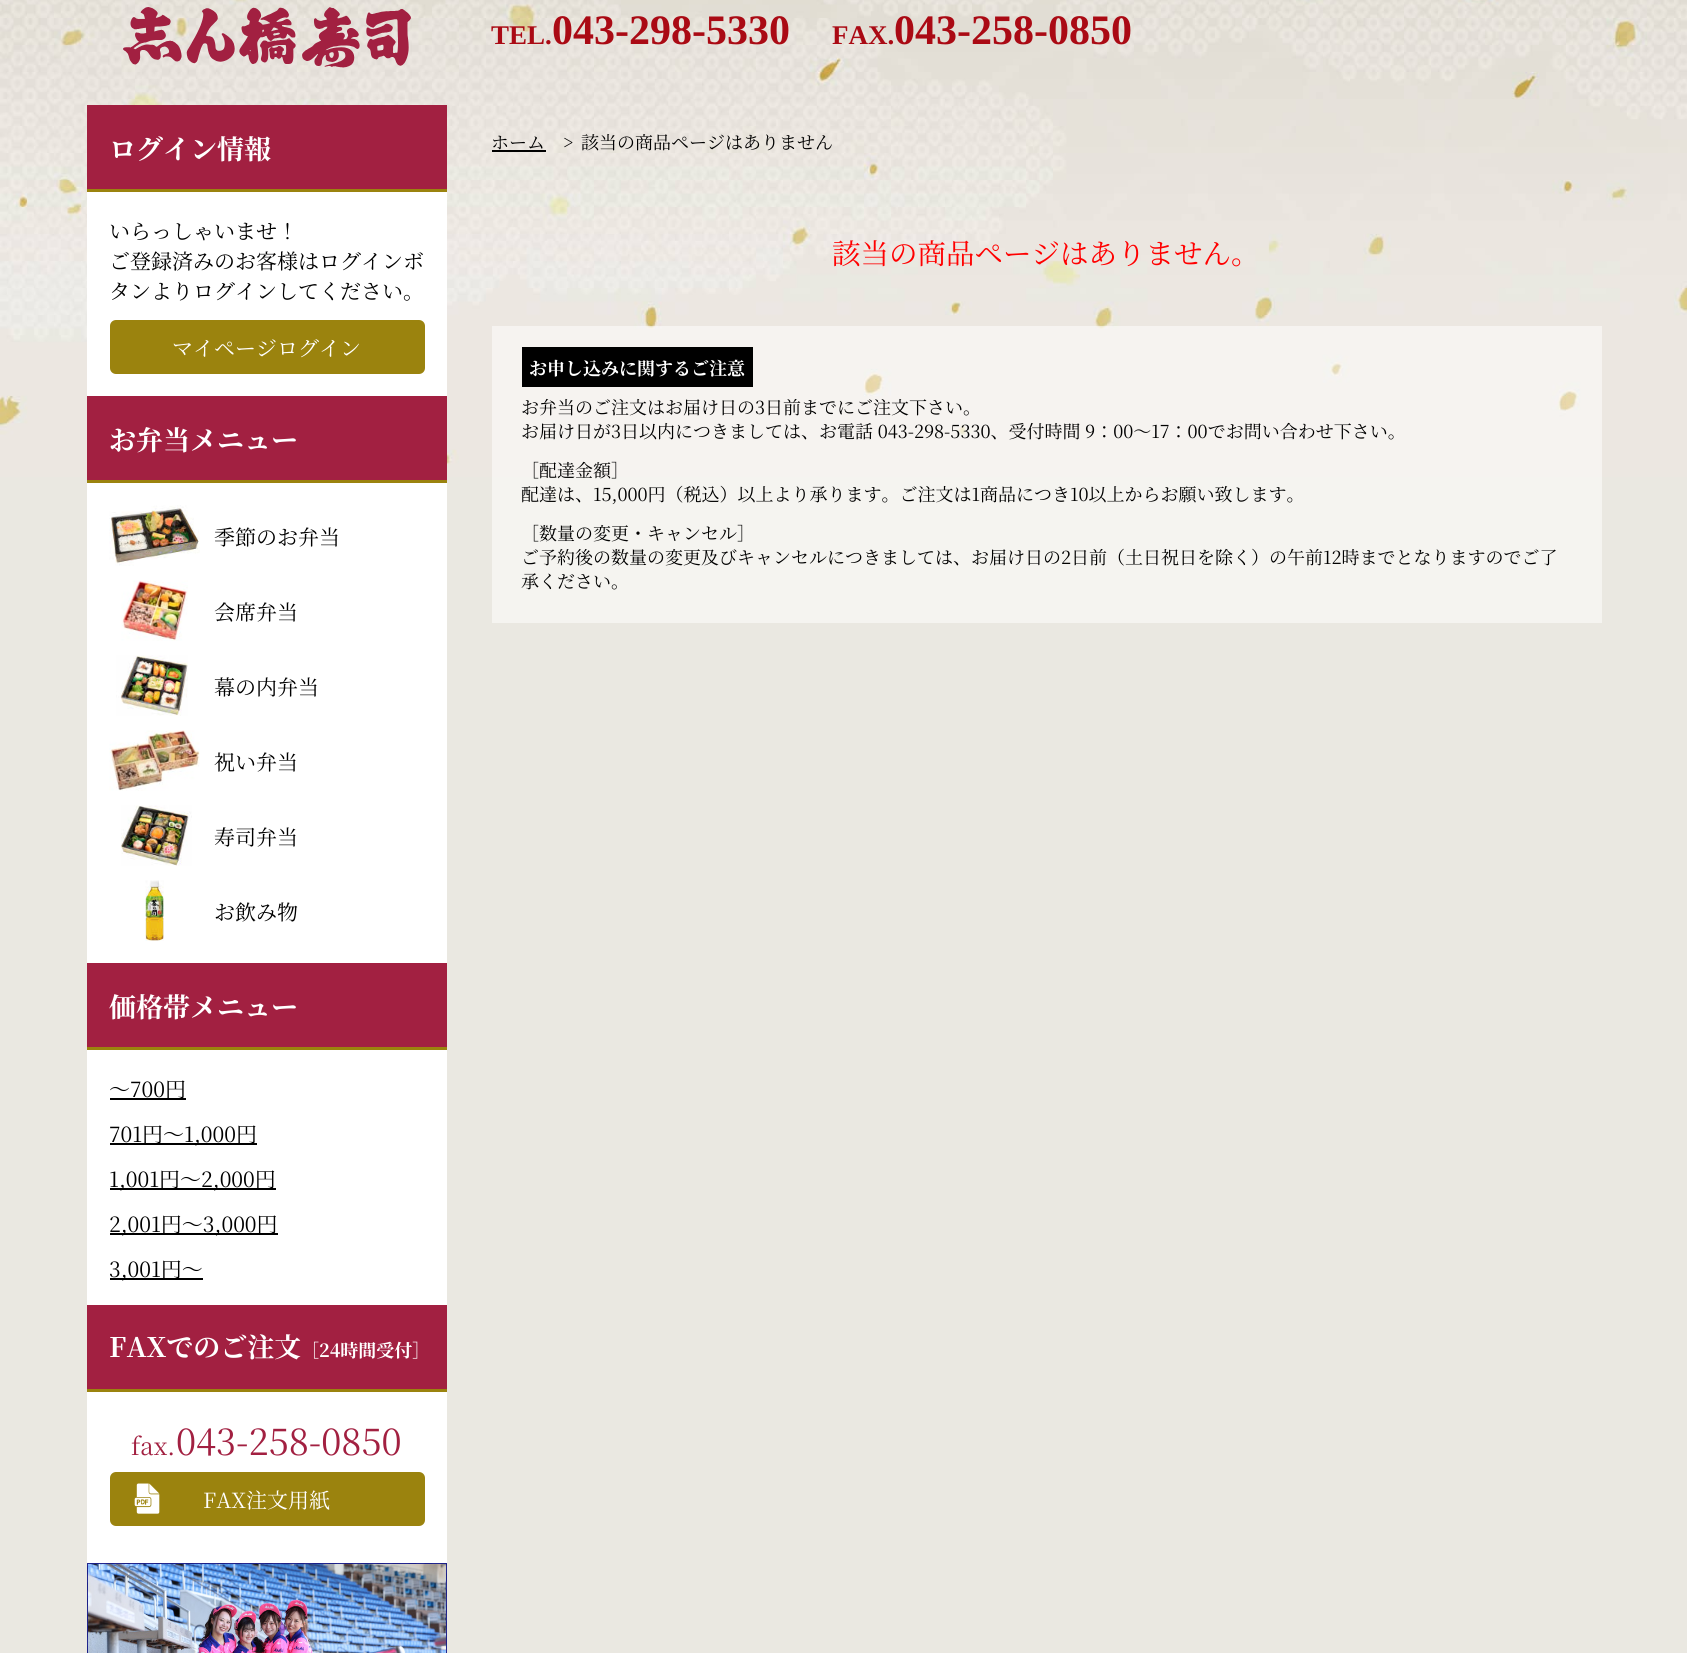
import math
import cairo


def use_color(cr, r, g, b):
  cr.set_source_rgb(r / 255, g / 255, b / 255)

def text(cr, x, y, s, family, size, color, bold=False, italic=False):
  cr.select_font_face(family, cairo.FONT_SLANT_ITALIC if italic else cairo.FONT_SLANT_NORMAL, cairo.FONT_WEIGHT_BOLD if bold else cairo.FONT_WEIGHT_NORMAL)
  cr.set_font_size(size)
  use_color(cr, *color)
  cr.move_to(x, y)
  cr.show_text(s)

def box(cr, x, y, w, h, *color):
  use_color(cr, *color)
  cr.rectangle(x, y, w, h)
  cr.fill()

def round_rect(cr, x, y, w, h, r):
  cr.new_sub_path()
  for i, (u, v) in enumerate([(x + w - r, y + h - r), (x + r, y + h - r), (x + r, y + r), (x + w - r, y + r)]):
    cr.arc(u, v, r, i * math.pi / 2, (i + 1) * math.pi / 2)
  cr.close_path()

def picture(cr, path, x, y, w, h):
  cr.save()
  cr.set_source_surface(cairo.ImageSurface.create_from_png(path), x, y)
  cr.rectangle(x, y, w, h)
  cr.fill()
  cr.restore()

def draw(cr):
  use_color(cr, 234, 232, 225)
  cr.paint()
  picture(cr, "img_01.png", 0, 0, 1687, 477)
  picture(cr, "img_02.png", 123, 7, 288, 61)
  box(cr, 87, 192, 360, 1371, 255, 255, 255)
  box(cr, 87, 105, 360, 84, 162, 32, 65)
  box(cr, 87, 189, 360, 3, 155, 131, 14)
  round_rect(cr, 110, 320, 315, 54, 6)
  cr.fill()
  box(cr, 87, 396, 360, 84, 162, 32, 65)
  box(cr, 87, 480, 360, 3, 155, 131, 14)
  picture(cr, "img_03.png", 109, 505, 91, 61)
  picture(cr, "img_04.png", 121, 580, 67, 61)
  picture(cr, "img_05.png", 116, 655, 72, 61)
  picture(cr, "img_06.png", 109, 730, 91, 61)
  picture(cr, "img_07.png", 121, 805, 71, 61)
  picture(cr, "img_08.png", 145, 880, 19, 61)
  box(cr, 87, 963, 360, 84, 162, 32, 65)
  box(cr, 87, 1047, 360, 3, 155, 131, 14)
  box(cr, 110, 1098, 76, 2, 0, 0, 0)
  box(cr, 110, 1143, 147, 2, 0, 0, 0)
  box(cr, 110, 1188, 166, 2, 0, 0, 0)
  box(cr, 110, 1233, 168, 2, 0, 0, 0)
  box(cr, 110, 1278, 93, 2, 0, 0, 0)
  box(cr, 87, 1305, 360, 84, 162, 32, 65)
  box(cr, 87, 1389, 360, 3, 155, 131, 14)
  round_rect(cr, 110, 1472, 315, 54, 6)
  cr.fill()
  picture(cr, "img_09.png", 134, 1483, 26, 31)
  picture(cr, "img_10.png", 87, 1563, 360, 90)
  box(cr, 492, 150, 54, 2, 0, 0, 0)
  cr.set_source_rgba(1, 1, 1, 0.5)
  cr.rectangle(492, 326, 1110, 297)
  cr.fill()
  box(cr, 522, 347, 231, 40, 0, 0, 0)
  text(cr, 491, 44, "TEL.", "Liberation Serif", 27, (170, 10, 20), bold=True)
  text(cr, 552, 44, "043-298-5330", "Liberation Serif", 42, (170, 10, 20), bold=True)
  text(cr, 832, 44, "FAX.", "Liberation Serif", 27, (170, 10, 20), bold=True)
  text(cr, 894, 44, "043-258-0850", "Liberation Serif", 42, (170, 10, 20), bold=True)
  text(cr, 109, 159, "ログイン情報", "Noto Serif JP", 27, (255, 255, 255), bold=True)
  text(cr, 109, 239, "いらっしゃいませ！", "Noto Serif JP", 21, (0, 0, 0))
  text(cr, 109, 269, "ご登録済みのお客様はログインボ", "Noto Serif JP", 21, (0, 0, 0))
  text(cr, 109, 299, "タンよりログインしてください。", "Noto Serif JP", 21, (0, 0, 0))
  text(cr, 172, 356, "マイページログイン", "Noto Serif JP", 21, (255, 255, 255))
  text(cr, 109, 450, "お弁当メニュー", "Noto Serif JP", 27, (255, 255, 255), bold=True)
  text(cr, 214, 545, "季節のお弁当", "Noto Serif JP", 21, (0, 0, 0))
  text(cr, 214, 620, "会席弁当", "Noto Serif JP", 21, (0, 0, 0))
  text(cr, 214, 695, "幕の内弁当", "Noto Serif JP", 21, (0, 0, 0))
  text(cr, 214, 770, "祝い弁当", "Noto Serif JP", 21, (0, 0, 0))
  text(cr, 214, 845, "寿司弁当", "Noto Serif JP", 21, (0, 0, 0))
  text(cr, 214, 920, "お飲み物", "Noto Serif JP", 21, (0, 0, 0))
  text(cr, 109, 1017, "価格帯メニュー", "Noto Serif JP", 27, (255, 255, 255), bold=True)
  text(cr, 109, 1097, "〜700円", "Noto Serif JP", 21, (0, 0, 0))
  text(cr, 109, 1142, "701円〜1,000円", "Noto Serif JP", 21, (0, 0, 0))
  text(cr, 109, 1187, "1,001円〜2,000円", "Noto Serif JP", 21, (0, 0, 0))
  text(cr, 109, 1232, "2,001円〜3,000円", "Noto Serif JP", 21, (0, 0, 0))
  text(cr, 109, 1277, "3,001円〜", "Noto Serif JP", 21, (0, 0, 0))
  text(cr, 109, 1357, "FAXでのご注文", "Noto Serif JP", 27, (255, 255, 255), bold=True)
  text(cr, 301, 1357, "［24時間受付］", "Noto Serif JP", 18, (255, 255, 255), bold=True)
  text(cr, 131, 1455, "fax.", "Noto Serif JP", 24, (162, 32, 65))
  text(cr, 176, 1455, "043-258-0850", "Noto Serif JP", 36, (162, 32, 65))
  text(cr, 203, 1508, "FAX注文用紙", "Noto Serif JP", 21, (255, 255, 255))
  text(cr, 491, 149, "ホーム", "Noto Serif JP", 18, (0, 0, 0))
  text(cr, 563, 149, ">", "Noto Serif JP", 18, (0, 0, 0))
  text(cr, 581, 149, "該当の商品ページはありません", "Noto Serif JP", 18, (0, 0, 0))
  text(cr, 832, 264, "該当の商品ページはありません。", "Noto Serif JP", 28.5, (255, 0, 0))
  text(cr, 529, 375, "お申し込みに関するご注意", "Noto Serif JP", 18, (255, 255, 255), bold=True)
  text(cr, 521, 414, "お弁当のご注文はお届け日の3日前までにご注文下さい。", "Noto Serif JP", 18, (0, 0, 0))
  text(cr, 521, 438, "お届け日が3日以内につきましては、お電話 043-298-5330、受付時間 9：00〜17：00でお問い合わせ下さい。", "Noto Serif JP", 18, (0, 0, 0))
  text(cr, 521, 477, "［配達金額］", "Noto Serif JP", 18, (0, 0, 0))
  text(cr, 521, 501, "配達は、15,000円（税込）以上より承ります。ご注文は1商品につき10以上からお願い致します。", "Noto Serif JP", 18, (0, 0, 0))
  text(cr, 521, 540, "［数量の変更・キャンセル］", "Noto Serif JP", 18, (0, 0, 0))
  text(cr, 521, 564, "ご予約後の数量の変更及びキャンセルにつきましては、お届け日の2日前（土日祝日を除く）の午前12時までとなりますのでご了", "Noto Serif JP", 18, (0, 0, 0))
  text(cr, 521, 588, "承ください。", "Noto Serif JP", 18, (0, 0, 0))


surface = cairo.ImageSurface(cairo.FORMAT_RGB24, 1687, 1653)
cr = cairo.Context(surface)
options = cairo.FontOptions()
options.set_hint_metrics(cairo.HINT_METRICS_OFF)
options.set_hint_style(cairo.HINT_STYLE_NONE)
cr.set_font_options(options)
cr.set_miter_limit(4)
draw(cr)
surface.write_to_png("out.png")
